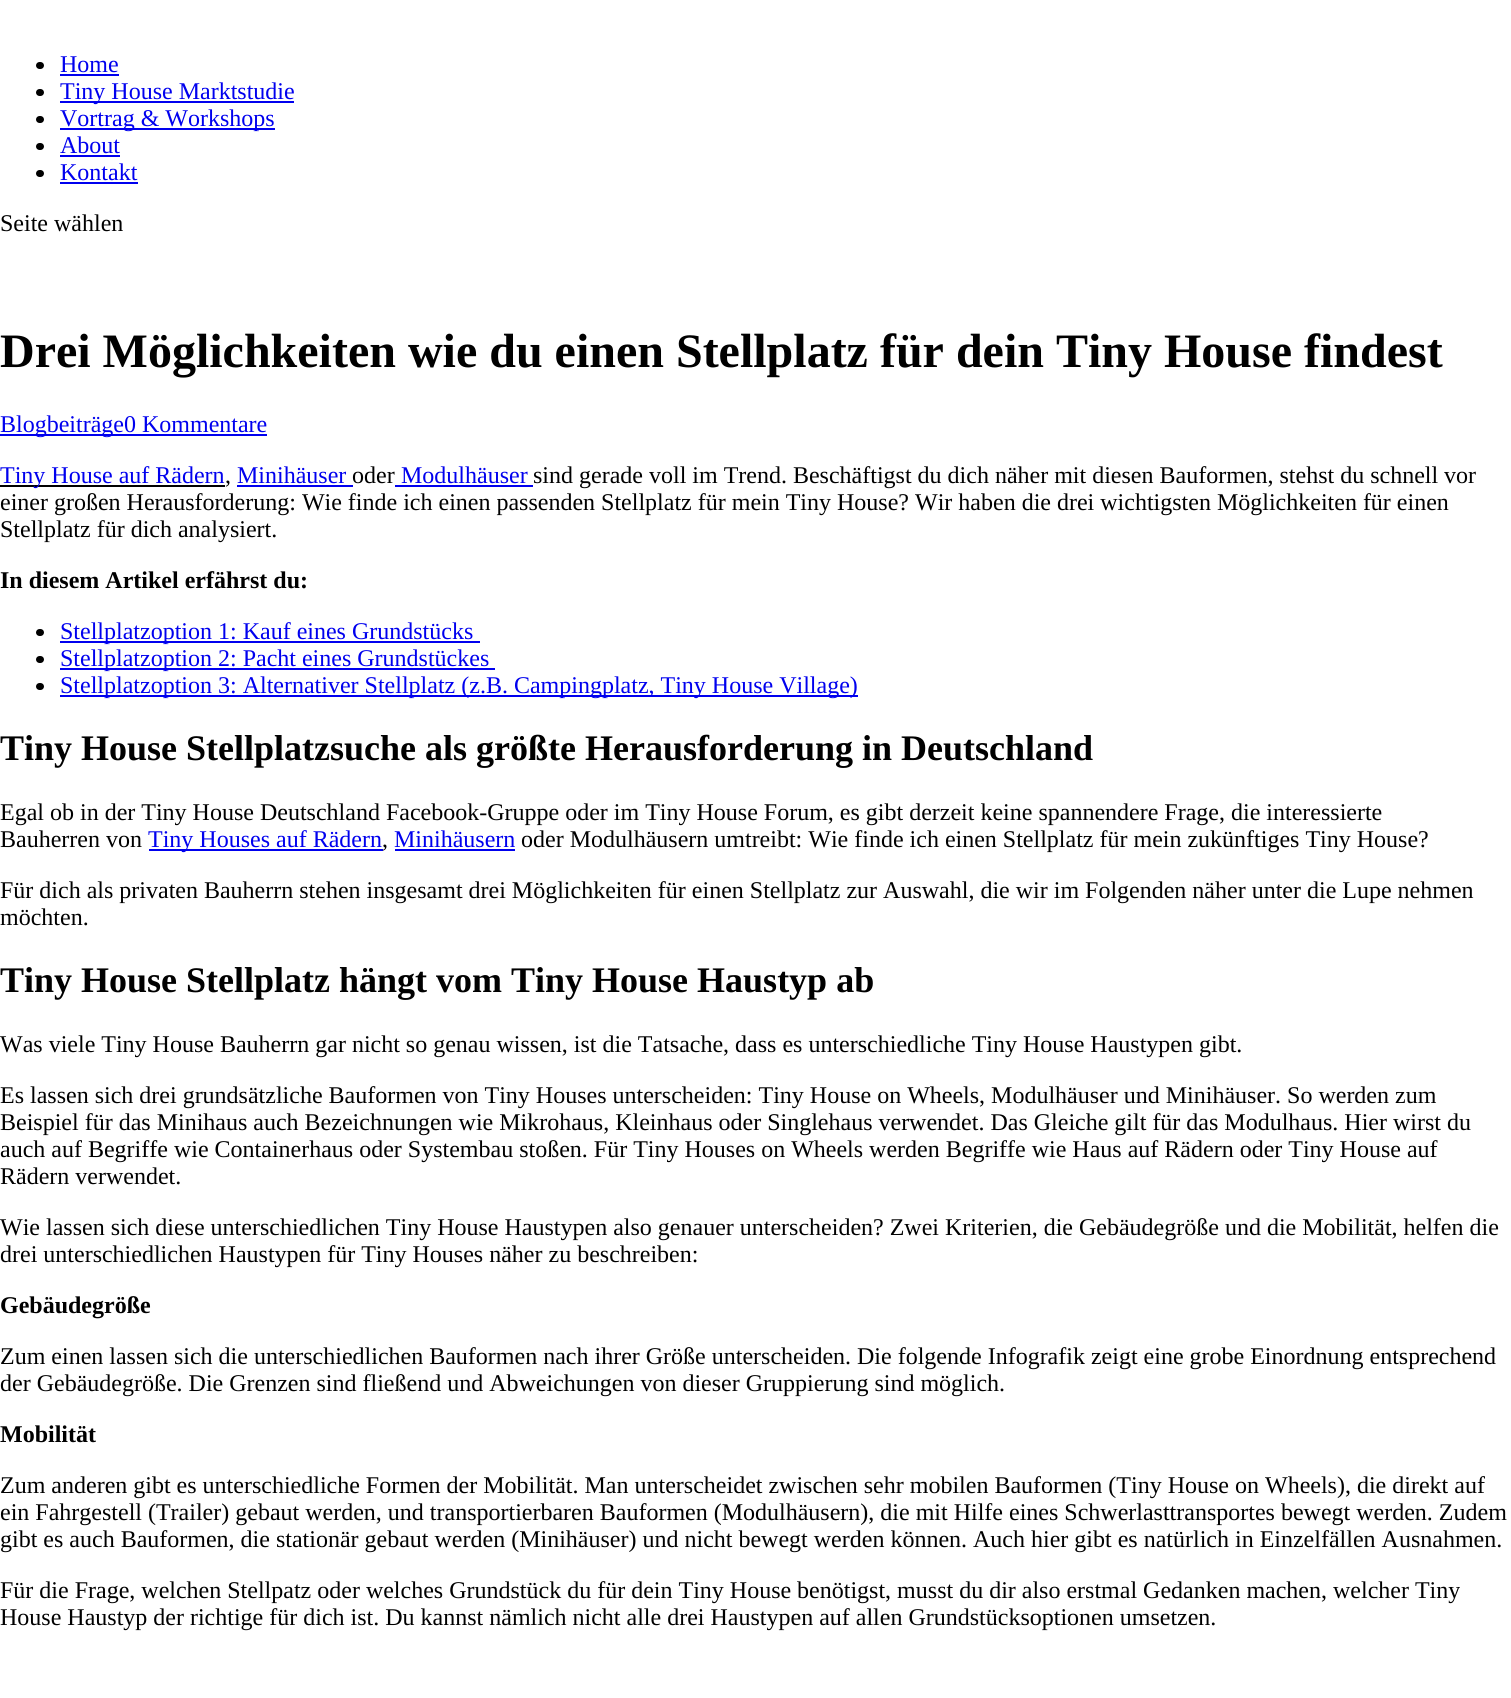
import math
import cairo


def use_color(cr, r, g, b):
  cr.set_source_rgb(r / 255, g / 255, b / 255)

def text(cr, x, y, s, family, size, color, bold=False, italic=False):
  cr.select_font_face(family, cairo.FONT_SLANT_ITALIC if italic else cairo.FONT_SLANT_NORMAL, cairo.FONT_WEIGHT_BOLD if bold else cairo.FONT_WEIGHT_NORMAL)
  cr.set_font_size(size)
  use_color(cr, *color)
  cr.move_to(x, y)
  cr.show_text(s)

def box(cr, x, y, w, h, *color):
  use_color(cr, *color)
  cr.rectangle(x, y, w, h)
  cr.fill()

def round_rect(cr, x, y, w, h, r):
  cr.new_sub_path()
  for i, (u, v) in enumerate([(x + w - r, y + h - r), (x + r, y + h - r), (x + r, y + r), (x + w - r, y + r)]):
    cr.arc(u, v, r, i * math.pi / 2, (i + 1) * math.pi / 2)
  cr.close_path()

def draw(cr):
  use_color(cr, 255, 255, 255)
  cr.paint()
  use_color(cr, 0, 0, 0)
  round_rect(cr, 36, 62, 8, 7, 3.5)
  cr.fill()
  box(cr, 60, 74, 59, 2, 0, 0, 238)
  use_color(cr, 0, 0, 0)
  round_rect(cr, 36, 89, 8, 7, 3.5)
  cr.fill()
  box(cr, 60, 101, 234, 2, 0, 0, 238)
  use_color(cr, 0, 0, 0)
  round_rect(cr, 36, 116, 8, 7, 3.5)
  cr.fill()
  box(cr, 60, 128, 215, 2, 0, 0, 238)
  use_color(cr, 0, 0, 0)
  round_rect(cr, 36, 143, 8, 7, 3.5)
  cr.fill()
  box(cr, 60, 155, 60, 2, 0, 0, 238)
  use_color(cr, 0, 0, 0)
  round_rect(cr, 36, 170, 8, 7, 3.5)
  cr.fill()
  box(cr, 60, 182, 78, 2, 0, 0, 238)
  box(cr, 0, 434, 267, 2, 0, 0, 238)
  box(cr, 0, 485, 225, 2, 0, 0, 0)
  box(cr, 237, 485, 116, 2, 0, 0, 238)
  box(cr, 395, 485, 138, 2, 0, 0, 238)
  use_color(cr, 0, 0, 0)
  round_rect(cr, 36, 629, 8, 7, 3.5)
  cr.fill()
  box(cr, 60, 641, 420, 2, 0, 0, 238)
  use_color(cr, 0, 0, 0)
  round_rect(cr, 36, 656, 8, 7, 3.5)
  cr.fill()
  box(cr, 60, 668, 435, 2, 0, 0, 238)
  use_color(cr, 0, 0, 0)
  round_rect(cr, 36, 683, 8, 7, 3.5)
  cr.fill()
  box(cr, 60, 695, 798, 2, 0, 0, 238)
  box(cr, 149, 849, 234, 2, 0, 0, 238)
  box(cr, 395, 849, 120, 2, 0, 0, 238)
  text(cr, 60, 72, "Home", "Liberation Serif", 24, (0, 0, 238))
  text(cr, 60, 99, "Tiny House Marktstudie", "Liberation Serif", 24, (0, 0, 238))
  text(cr, 60, 126, "Vortrag & Workshops", "Liberation Serif", 24, (0, 0, 238))
  text(cr, 60, 153, "About", "Liberation Serif", 24, (0, 0, 238))
  text(cr, 60, 180, "Kontakt", "Liberation Serif", 24, (0, 0, 238))
  text(cr, 0, 231, "Seite wählen", "Liberation Serif", 24, (0, 0, 0))
  text(cr, 0, 367, "Drei Möglichkeiten wie du einen Stellplatz für dein Tiny House findest", "Liberation Serif", 48, (0, 0, 0), bold=True)
  text(cr, 0, 432, "Blogbeiträge0 Kommentare", "Liberation Serif", 24, (0, 0, 238))
  text(cr, 0, 483, "Tiny House auf Rädern", "Liberation Serif", 24, (0, 0, 238))
  text(cr, 225, 483, ",", "Liberation Serif", 24, (0, 0, 0))
  text(cr, 237, 483, "Minihäuser", "Liberation Serif", 24, (0, 0, 238))
  text(cr, 352, 483, "oder", "Liberation Serif", 24, (0, 0, 0))
  text(cr, 401, 483, "Modulhäuser", "Liberation Serif", 24, (0, 0, 238))
  text(cr, 533, 483, "sind gerade voll im Trend. Beschäftigst du dich näher mit diesen Bauformen, stehst du schnell vor", "Liberation Serif", 24, (0, 0, 0))
  text(cr, 0, 510, "einer großen Herausforderung: Wie finde ich einen passenden Stellplatz für mein Tiny House? Wir haben die drei wichtigsten Möglichkeiten für einen", "Liberation Serif", 24, (0, 0, 0))
  text(cr, 0, 537, "Stellplatz für dich analysiert.", "Liberation Serif", 24, (0, 0, 0))
  text(cr, 0, 588, "In diesem Artikel erfährst du:", "Liberation Serif", 24, (0, 0, 0), bold=True)
  text(cr, 60, 639, "Stellplatzoption 1: Kauf eines Grundstücks", "Liberation Serif", 24, (0, 0, 238))
  text(cr, 60, 666, "Stellplatzoption 2: Pacht eines Grundstückes", "Liberation Serif", 24, (0, 0, 238))
  text(cr, 60, 693, "Stellplatzoption 3: Alternativer Stellplatz (z.B. Campingplatz, Tiny House Village)", "Liberation Serif", 24, (0, 0, 238))
  text(cr, 0, 760, "Tiny House Stellplatzsuche als größte Herausforderung in Deutschland", "Liberation Serif", 36, (0, 0, 0), bold=True)
  text(cr, 0, 820, "Egal ob in der Tiny House Deutschland Facebook-Gruppe oder im Tiny House Forum, es gibt derzeit keine spannendere Frage, die interessierte", "Liberation Serif", 24, (0, 0, 0))
  text(cr, 0, 847, "Bauherren von", "Liberation Serif", 24, (0, 0, 0))
  text(cr, 148, 847, "Tiny Houses auf Rädern", "Liberation Serif", 24, (0, 0, 238))
  text(cr, 382, 847, ",", "Liberation Serif", 24, (0, 0, 0))
  text(cr, 394, 847, "Minihäusern", "Liberation Serif", 24, (0, 0, 238))
  text(cr, 521, 847, "oder Modulhäusern umtreibt: Wie finde ich einen Stellplatz für mein zukünftiges Tiny House?", "Liberation Serif", 24, (0, 0, 0))
  text(cr, 0, 898, "Für dich als privaten Bauherrn stehen insgesamt drei Möglichkeiten für einen Stellplatz zur Auswahl, die wir im Folgenden näher unter die Lupe nehmen", "Liberation Serif", 24, (0, 0, 0))
  text(cr, 0, 925, "möchten.", "Liberation Serif", 24, (0, 0, 0))
  text(cr, 0, 992, "Tiny House Stellplatz hängt vom Tiny House Haustyp ab", "Liberation Serif", 36, (0, 0, 0), bold=True)
  text(cr, 0, 1052, "Was viele Tiny House Bauherrn gar nicht so genau wissen, ist die Tatsache, dass es unterschiedliche Tiny House Haustypen gibt.", "Liberation Serif", 24, (0, 0, 0))
  text(cr, 0, 1103, "Es lassen sich drei grundsätzliche Bauformen von Tiny Houses unterscheiden: Tiny House on Wheels, Modulhäuser und Minihäuser. So werden zum", "Liberation Serif", 24, (0, 0, 0))
  text(cr, 0, 1130, "Beispiel für das Minihaus auch Bezeichnungen wie Mikrohaus, Kleinhaus oder Singlehaus verwendet. Das Gleiche gilt für das Modulhaus. Hier wirst du", "Liberation Serif", 24, (0, 0, 0))
  text(cr, 0, 1157, "auch auf Begriffe wie Containerhaus oder Systembau stoßen. Für Tiny Houses on Wheels werden Begriffe wie Haus auf Rädern oder Tiny House auf", "Liberation Serif", 24, (0, 0, 0))
  text(cr, 0, 1184, "Rädern verwendet.", "Liberation Serif", 24, (0, 0, 0))
  text(cr, 0, 1235, "Wie lassen sich diese unterschiedlichen Tiny House Haustypen also genauer unterscheiden? Zwei Kriterien, die Gebäudegröße und die Mobilität, helfen die", "Liberation Serif", 24, (0, 0, 0))
  text(cr, 0, 1262, "drei unterschiedlichen Haustypen für Tiny Houses näher zu beschreiben:", "Liberation Serif", 24, (0, 0, 0))
  text(cr, 0, 1313, "Gebäudegröße", "Liberation Serif", 24, (0, 0, 0), bold=True)
  text(cr, 0, 1364, "Zum einen lassen sich die unterschiedlichen Bauformen nach ihrer Größe unterscheiden. Die folgende Infografik zeigt eine grobe Einordnung entsprechend", "Liberation Serif", 24, (0, 0, 0))
  text(cr, 0, 1391, "der Gebäudegröße. Die Grenzen sind fließend und Abweichungen von dieser Gruppierung sind möglich.", "Liberation Serif", 24, (0, 0, 0))
  text(cr, 0, 1442, "Mobilität", "Liberation Serif", 24, (0, 0, 0), bold=True)
  text(cr, 0, 1493, "Zum anderen gibt es unterschiedliche Formen der Mobilität. Man unterscheidet zwischen sehr mobilen Bauformen (Tiny House on Wheels), die direkt auf", "Liberation Serif", 24, (0, 0, 0))
  text(cr, 0, 1520, "ein Fahrgestell (Trailer) gebaut werden, und transportierbaren Bauformen (Modulhäusern), die mit Hilfe eines Schwerlasttransportes bewegt werden. Zudem", "Liberation Serif", 24, (0, 0, 0))
  text(cr, 0, 1547, "gibt es auch Bauformen, die stationär gebaut werden (Minihäuser) und nicht bewegt werden können. Auch hier gibt es natürlich in Einzelfällen Ausnahmen.", "Liberation Serif", 24, (0, 0, 0))
  text(cr, 0, 1598, "Für die Frage, welchen Stellpatz oder welches Grundstück du für dein Tiny House benötigst, musst du dir also erstmal Gedanken machen, welcher Tiny", "Liberation Serif", 24, (0, 0, 0))
  text(cr, 0, 1625, "House Haustyp der richtige für dich ist. Du kannst nämlich nicht alle drei Haustypen auf allen Grundstücksoptionen umsetzen.", "Liberation Serif", 24, (0, 0, 0))


surface = cairo.ImageSurface(cairo.FORMAT_RGB24, 1511, 1698)
cr = cairo.Context(surface)
options = cairo.FontOptions()
options.set_hint_metrics(cairo.HINT_METRICS_OFF)
options.set_hint_style(cairo.HINT_STYLE_NONE)
cr.set_font_options(options)
cr.set_miter_limit(4)
draw(cr)
surface.write_to_png("out.png")
